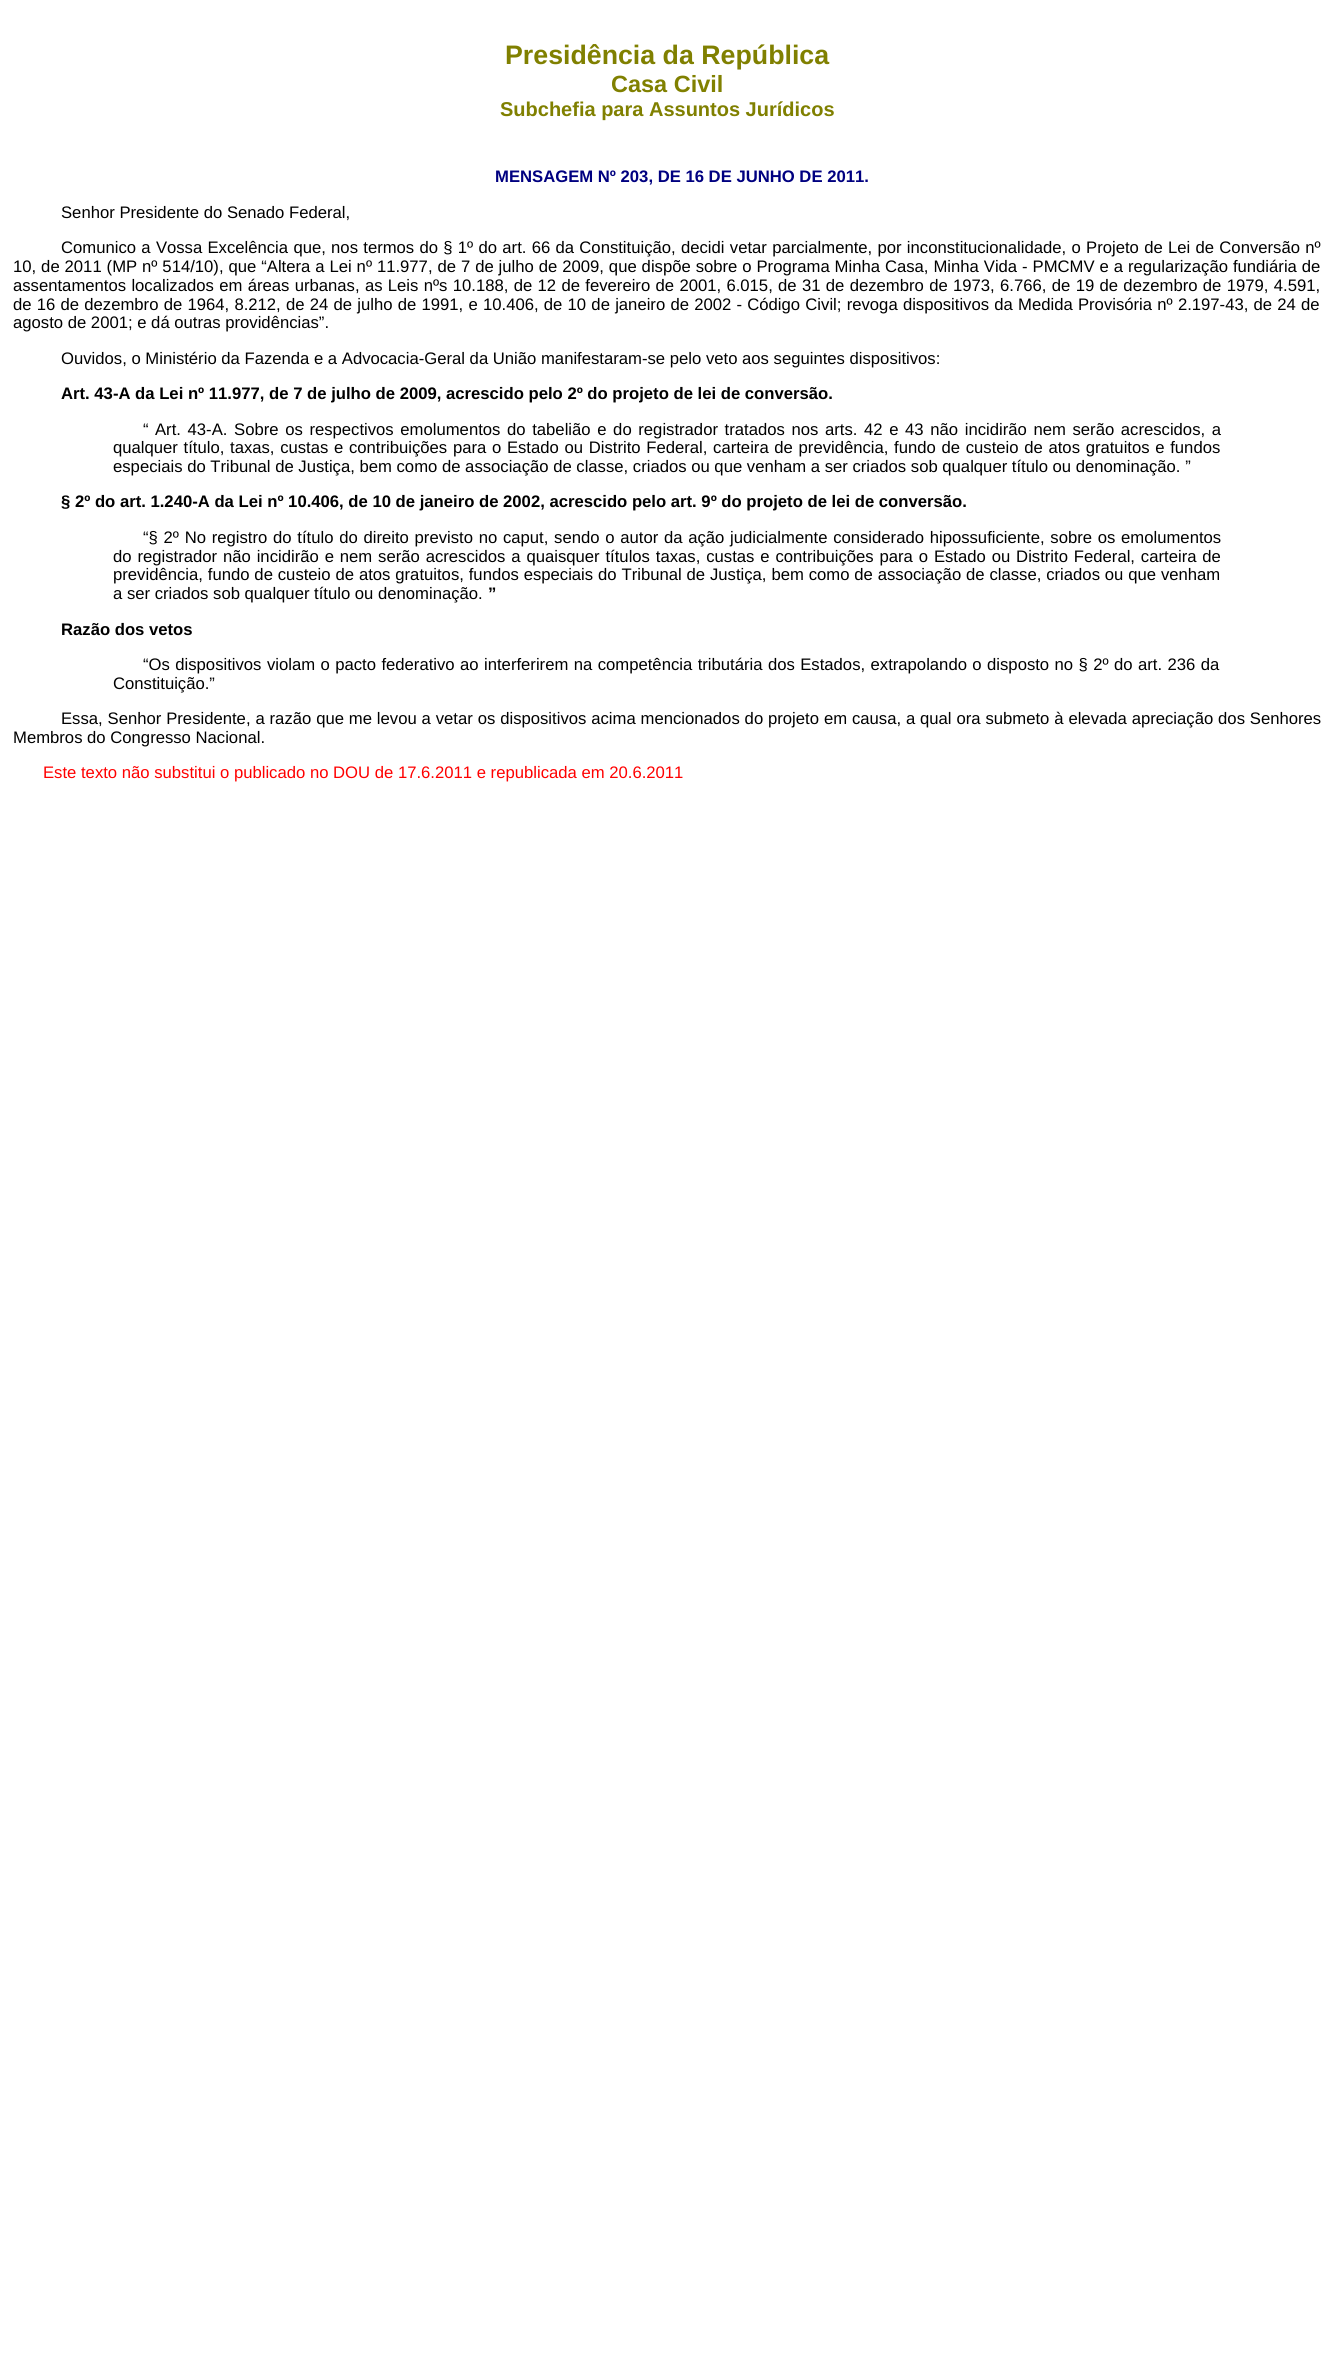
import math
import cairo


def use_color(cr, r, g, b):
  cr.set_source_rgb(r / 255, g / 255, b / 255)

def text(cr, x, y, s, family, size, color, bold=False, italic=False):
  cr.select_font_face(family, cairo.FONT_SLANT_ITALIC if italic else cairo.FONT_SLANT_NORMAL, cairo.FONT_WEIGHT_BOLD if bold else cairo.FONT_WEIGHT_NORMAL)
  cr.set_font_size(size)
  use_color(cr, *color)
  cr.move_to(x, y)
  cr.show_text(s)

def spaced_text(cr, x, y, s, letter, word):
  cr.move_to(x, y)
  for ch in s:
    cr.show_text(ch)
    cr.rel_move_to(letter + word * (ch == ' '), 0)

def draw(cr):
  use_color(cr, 255, 255, 255)
  cr.paint()
  text(cr, 505, 64, "Presidência da República", "Liberation Sans", 26.75, (128, 128, 0), bold=True)
  text(cr, 611, 92, "Casa Civil", "Liberation Sans", 23.5, (128, 128, 0), bold=True)
  text(cr, 500, 116, "Subchefia para Assuntos Jurídicos", "Liberation Sans", 20, (128, 128, 0), bold=True)
  text(cr, 495, 182, "MENSAGEM Nº 203, DE 16 DE JUNHO DE 2011.", "Liberation Sans", 16.67, (0, 0, 128), bold=True)
  text(cr, 61, 218, "Senhor Presidente do Senado Federal,", "Liberation Sans", 16.67, (0, 0, 0))
  spaced_text(cr, 61, 253, "Comunico a Vossa Excelência que, nos termos do § 1º do art. 66 da Constituição, decidi vetar parcialmente, por inconstitucionalidade, o Projeto de Lei de Conversão nº", 0, 0.65)
  spaced_text(cr, 13, 272, "10, de 2011 (MP nº 514/10), que “Altera a Lei nº 11.977, de 7 de julho de 2009, que dispõe sobre o Programa Minha Casa, Minha Vida - PMCMV e a regularização fundiária de", 0, 0.3)
  spaced_text(cr, 13, 291, "assentamentos localizados em áreas urbanas, as Leis nºs 10.188, de 12 de fevereiro de 2001, 6.015, de 31 de dezembro de 1973, 6.766, de 19 de dezembro de 1979, 4.591,", 0, 0.7)
  spaced_text(cr, 13, 310, "de 16 de dezembro de 1964, 8.212, de 24 de julho de 1991, e 10.406, de 10 de janeiro de 2002 - Código Civil; revoga dispositivos da Medida Provisória nº 2.197-43, de 24 de", 0, 0.6)
  text(cr, 13, 328, "agosto de 2001; e dá outras providências”.", "Liberation Sans", 16.67, (0, 0, 0))
  text(cr, 61, 364, "Ouvidos, o Ministério da Fazenda e a Advocacia-Geral da União manifestaram-se pelo veto aos seguintes dispositivos:", "Liberation Sans", 16.67, (0, 0, 0))
  text(cr, 61, 399, "Art. 43-A da Lei nº 11.977, de 7 de julho de 2009, acrescido pelo 2º do projeto de lei de conversão.", "Liberation Sans", 16.67, (0, 0, 0), bold=True)
  text(cr, 143, 435, "“", "Liberation Sans", 16.67, (0, 0, 0))
  spaced_text(cr, 155, 435, "Art. 43-A. Sobre os respectivos emolumentos do tabelião e do registrador tratados nos arts. 42 e 43 não incidirão nem serão acrescidos, a", 0, 2)
  spaced_text(cr, 113, 453, "qualquer título, taxas, custas e contribuições para o Estado ou Distrito Federal, carteira de previdência, fundo de custeio de atos gratuitos e fundos", 0, 1.05)
  text(cr, 113, 472, "especiais do Tribunal de Justiça, bem como de associação de classe, criados ou que venham a ser criados sob qualquer título ou denominação. ”", "Liberation Sans", 16.67, (0, 0, 0))
  text(cr, 61, 507, "§ 2º do art. 1.240-A da Lei nº 10.406, de 10 de janeiro de 2002, acrescido pelo art. 9º do projeto de lei de conversão.", "Liberation Sans", 16.67, (0, 0, 0), bold=True)
  cr.select_font_face("Liberation Sans")
  spaced_text(cr, 143, 543, "“§ 2º No registro do título do direito previsto no caput, sendo o autor da ação judicialmente considerado hipossuficiente, sobre os emolumentos", 0, 1.1)
  spaced_text(cr, 113, 562, "do registrador não incidirão e nem serão acrescidos a quaisquer títulos taxas, custas e contribuições para o Estado ou Distrito Federal, carteira de", 0, 1.25)
  spaced_text(cr, 113, 580, "previdência, fundo de custeio de atos gratuitos, fundos especiais do Tribunal de Justiça, bem como de associação de classe, criados ou que venham", 0, 0.25)
  text(cr, 113, 599, "a ser criados sob qualquer título ou denominação.", "Liberation Sans", 16.67, (0, 0, 0))
  text(cr, 488, 599, "”", "Liberation Sans", 16.67, (0, 0, 0), bold=True)
  text(cr, 61, 635, "Razão dos vetos", "Liberation Sans", 16.67, (0, 0, 0), bold=True)
  cr.select_font_face("Liberation Sans")
  spaced_text(cr, 143, 670, "“Os dispositivos violam o pacto federativo ao interferirem na competência tributária dos Estados, extrapolando o disposto no § 2º do art. 236 da", 0, 0.8)
  text(cr, 113, 689, "Constituição.”", "Liberation Sans", 16.67, (0, 0, 0))
  spaced_text(cr, 61, 724, "Essa, Senhor Presidente, a razão que me levou a vetar os dispositivos acima mencionados do projeto em causa, a qual ora submeto à elevada apreciação dos Senhores", 0, 0.25)
  text(cr, 13, 743, "Membros do Congresso Nacional.", "Liberation Sans", 16.67, (0, 0, 0))
  text(cr, 43, 778, "Este texto não substitui o publicado no DOU de 17.6.2011 e republicada em 20.6.2011", "Liberation Sans", 16.67, (255, 0, 0))


surface = cairo.ImageSurface(cairo.FORMAT_RGB24, 1333, 2356)
cr = cairo.Context(surface)
options = cairo.FontOptions()
options.set_hint_metrics(cairo.HINT_METRICS_OFF)
options.set_hint_style(cairo.HINT_STYLE_NONE)
cr.set_font_options(options)
cr.set_miter_limit(4)
draw(cr)
surface.write_to_png("out.png")
